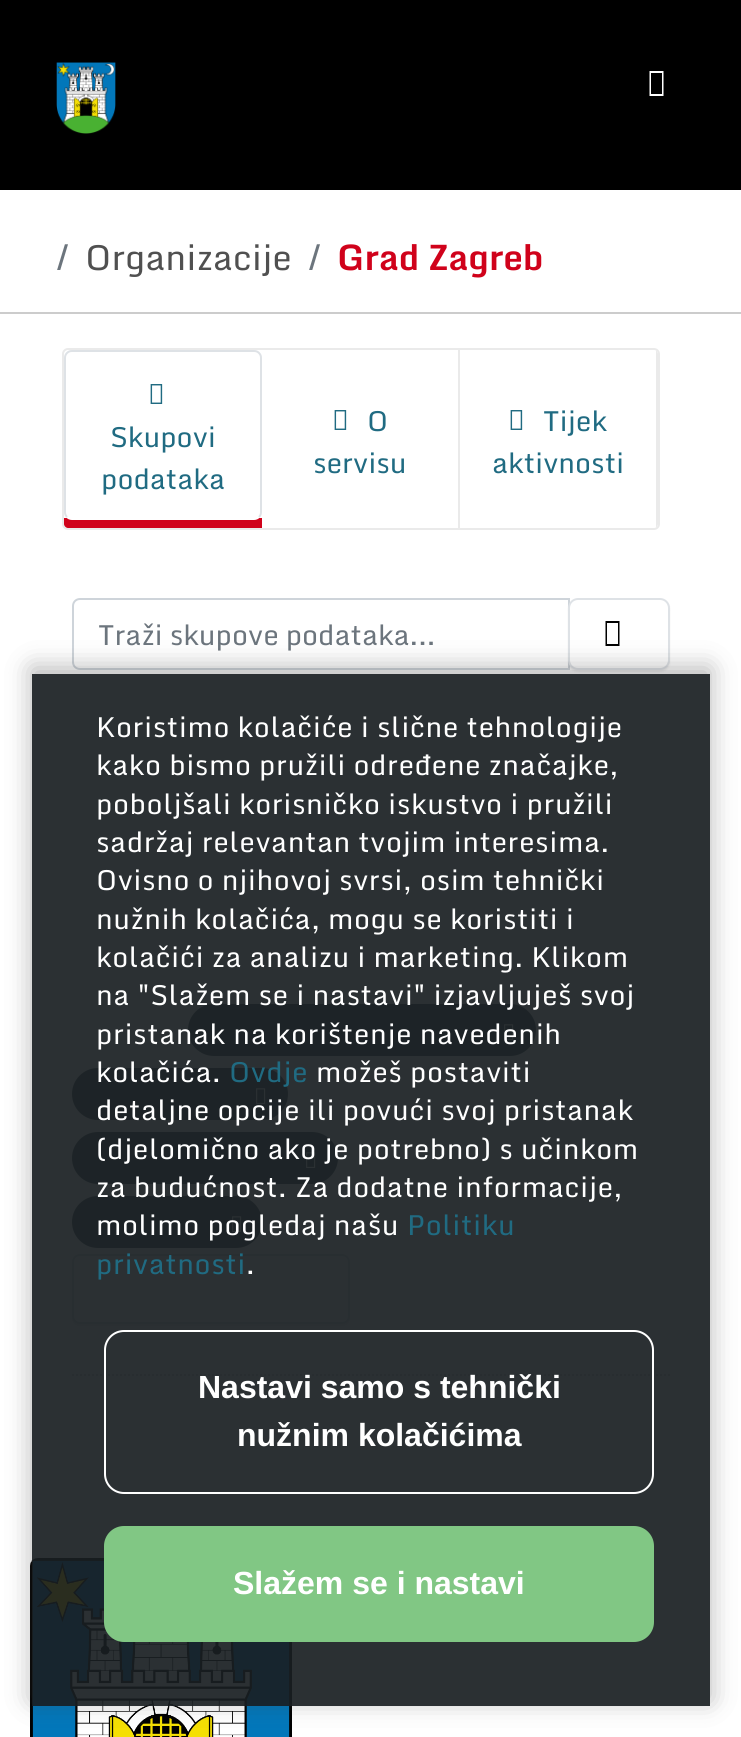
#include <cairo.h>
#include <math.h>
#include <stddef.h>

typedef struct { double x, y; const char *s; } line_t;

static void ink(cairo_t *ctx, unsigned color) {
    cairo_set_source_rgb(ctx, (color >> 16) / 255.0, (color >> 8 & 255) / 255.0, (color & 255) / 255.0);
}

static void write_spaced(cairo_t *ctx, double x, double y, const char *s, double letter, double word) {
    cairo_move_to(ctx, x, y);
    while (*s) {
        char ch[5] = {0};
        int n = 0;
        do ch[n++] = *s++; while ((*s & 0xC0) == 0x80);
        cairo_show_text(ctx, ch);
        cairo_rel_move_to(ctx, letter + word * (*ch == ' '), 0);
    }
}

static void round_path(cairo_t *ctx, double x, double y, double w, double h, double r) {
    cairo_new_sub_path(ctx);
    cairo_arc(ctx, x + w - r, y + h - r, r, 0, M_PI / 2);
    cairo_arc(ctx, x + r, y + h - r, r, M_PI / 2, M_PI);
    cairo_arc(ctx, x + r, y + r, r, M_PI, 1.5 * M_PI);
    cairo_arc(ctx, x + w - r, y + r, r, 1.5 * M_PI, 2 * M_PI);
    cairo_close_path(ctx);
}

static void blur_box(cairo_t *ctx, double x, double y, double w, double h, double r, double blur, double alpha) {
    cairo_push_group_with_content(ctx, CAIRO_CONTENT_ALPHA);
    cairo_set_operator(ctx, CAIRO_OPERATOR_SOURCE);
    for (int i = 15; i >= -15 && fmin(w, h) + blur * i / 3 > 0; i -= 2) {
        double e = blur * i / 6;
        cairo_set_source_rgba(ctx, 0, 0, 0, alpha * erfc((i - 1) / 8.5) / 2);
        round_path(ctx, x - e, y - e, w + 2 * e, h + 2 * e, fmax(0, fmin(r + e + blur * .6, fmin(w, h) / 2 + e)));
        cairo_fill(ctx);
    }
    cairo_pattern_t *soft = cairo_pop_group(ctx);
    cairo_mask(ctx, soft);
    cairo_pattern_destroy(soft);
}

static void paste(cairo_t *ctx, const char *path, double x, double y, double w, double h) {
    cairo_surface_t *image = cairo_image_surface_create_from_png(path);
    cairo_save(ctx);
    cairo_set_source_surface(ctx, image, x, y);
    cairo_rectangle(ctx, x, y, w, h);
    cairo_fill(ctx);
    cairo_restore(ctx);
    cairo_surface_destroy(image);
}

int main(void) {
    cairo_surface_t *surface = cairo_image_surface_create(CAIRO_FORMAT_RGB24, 741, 1737);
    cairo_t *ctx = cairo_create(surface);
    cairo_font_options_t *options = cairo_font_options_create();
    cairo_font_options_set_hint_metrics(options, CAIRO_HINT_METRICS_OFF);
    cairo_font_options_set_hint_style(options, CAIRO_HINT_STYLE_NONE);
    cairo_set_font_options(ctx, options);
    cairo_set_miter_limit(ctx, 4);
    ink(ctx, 0xFFFFFF);
    cairo_paint(ctx);
    ink(ctx, 0x000000);
    cairo_rectangle(ctx, 0, 0, 741, 190);
    cairo_fill(ctx);
    paste(ctx, "media/1.png", 56, 62, 60, 72);
    ink(ctx, 0xFFFFFF);
    cairo_new_path(ctx);
    cairo_move_to(ctx, 649.5, 96);
    cairo_line_to(ctx, 649.5, 71);
    cairo_line_to(ctx, 663.5, 71);
    cairo_line_to(ctx, 663.5, 96);
    cairo_close_path(ctx);
    cairo_move_to(ctx, 651, 94);
    cairo_line_to(ctx, 662, 94);
    cairo_line_to(ctx, 662, 73);
    cairo_line_to(ctx, 651, 73);
    cairo_close_path(ctx);
    cairo_fill(ctx);
    cairo_select_font_face(ctx, "Monda", CAIRO_FONT_SLANT_NORMAL, CAIRO_FONT_WEIGHT_NORMAL);
    cairo_set_font_size(ctx, 35);
    ink(ctx, 0x6C757D);
    cairo_move_to(ctx, 56, 270);
    cairo_show_text(ctx, "/");
    ink(ctx, 0x505050);
    cairo_move_to(ctx, 85, 270);
    cairo_show_text(ctx, "Organizacije");
    ink(ctx, 0x6C757D);
    cairo_move_to(ctx, 308, 270);
    cairo_show_text(ctx, "/");
    cairo_select_font_face(ctx, "Monda", CAIRO_FONT_SLANT_NORMAL, CAIRO_FONT_WEIGHT_BOLD);
    ink(ctx, 0xD0021B);
    cairo_move_to(ctx, 337, 270);
    cairo_show_text(ctx, "Grad Zagreb");
    ink(ctx, 0xCCCCCC);
    cairo_rectangle(ctx, 0, 312, 741, 2);
    cairo_fill(ctx);
    round_path(ctx, 63, 349, 596, 180, 5);
    ink(ctx, 0xEAEAEA);
    cairo_stroke(ctx);
    ink(ctx, 0xD0021B);
    cairo_new_path(ctx);
    cairo_move_to(ctx, 64, 518);
    cairo_line_to(ctx, 262, 518);
    cairo_line_to(ctx, 262, 528);
    cairo_line_to(ctx, 68, 528);
    cairo_curve_to(ctx, 66, 528, 64, 526, 64, 524);
    cairo_close_path(ctx);
    cairo_fill(ctx);
    ink(ctx, 0xFFFFFF);
    round_path(ctx, 64, 350, 198, 170, 8);
    cairo_fill(ctx);
    cairo_new_path(ctx);
    cairo_move_to(ctx, 67, 517);
    cairo_curve_to(ctx, 65.5, 515.5, 65, 514, 65, 512);
    cairo_line_to(ctx, 65, 358);
    cairo_curve_to(ctx, 65, 356, 65.5, 354.5, 67, 353);
    cairo_curve_to(ctx, 68.5, 351.5, 70, 351, 72, 351);
    cairo_line_to(ctx, 254, 351);
    cairo_curve_to(ctx, 256, 351, 257.5, 351.5, 259, 353);
    cairo_curve_to(ctx, 260.5, 354.5, 261, 356, 261, 358);
    cairo_line_to(ctx, 261, 512);
    cairo_curve_to(ctx, 261, 514, 260.5, 515.5, 259, 517);
    ink(ctx, 0xDEE2E6);
    cairo_stroke(ctx);
    paste(ctx, "media/2.png", 150, 384, 13, 20);
    cairo_select_font_face(ctx, "Monda", CAIRO_FONT_SLANT_NORMAL, CAIRO_FONT_WEIGHT_NORMAL);
    cairo_set_font_size(ctx, 28);
    ink(ctx, 0x206B82);
    cairo_move_to(ctx, 110, 447);
    cairo_show_text(ctx, "Skupovi");
    cairo_move_to(ctx, 101, 489);
    cairo_show_text(ctx, "podataka");
    ink(ctx, 0xEAEAEA);
    cairo_rectangle(ctx, 458, 350, 2, 178);
    cairo_fill(ctx);
    paste(ctx, "media/2.png", 334, 410, 13, 20);
    ink(ctx, 0x206B82);
    cairo_move_to(ctx, 367, 431);
    cairo_show_text(ctx, "O");
    cairo_move_to(ctx, 313, 473);
    cairo_show_text(ctx, "servisu");
    cairo_save(ctx);
    round_path(ctx, 64, 350, 594, 178, 4);
    cairo_clip(ctx);
    ink(ctx, 0xEAEAEA);
    cairo_rectangle(ctx, 656, 350, 2, 178);
    cairo_fill(ctx);
    cairo_restore(ctx);
    paste(ctx, "media/2.png", 510, 410, 13, 20);
    cairo_move_to(ctx, 543, 431);
    cairo_show_text(ctx, "Tijek");
    cairo_move_to(ctx, 492, 473);
    cairo_show_text(ctx, "aktivnosti");
    cairo_new_path(ctx);
    cairo_move_to(ctx, 72, 1375);
    cairo_line_to(ctx, 670, 1375);
    ink(ctx, 0xDDDDDD);
    cairo_set_dash(ctx, (double[]){2, 2}, 2, 0);
    cairo_stroke(ctx);
    cairo_new_path(ctx);
    cairo_move_to(ctx, 80, 599);
    cairo_line_to(ctx, 569, 599);
    cairo_line_to(ctx, 569, 669);
    cairo_line_to(ctx, 80, 669);
    cairo_curve_to(ctx, 76, 669, 73, 666, 73, 662);
    cairo_line_to(ctx, 73, 606);
    cairo_curve_to(ctx, 73, 602, 76, 599, 80, 599);
    cairo_close_path(ctx);
    ink(ctx, 0xCED4DA);
    cairo_set_dash(ctx, NULL, 0, 0);
    cairo_stroke(ctx);
    ink(ctx, 0x6C757D);
    cairo_move_to(ctx, 98, 645);
    cairo_show_text(ctx, "Traži skupove podataka...");
    ink(ctx, 0x000000);
    blur_box(ctx, 568, 600, 102, 72, 10, 1, 0.07);
    ink(ctx, 0xFFFFFF);
    round_path(ctx, 569, 599, 100, 70, 9);
    cairo_fill_preserve(ctx);
    ink(ctx, 0xDEE2E6);
    cairo_stroke(ctx);
    ink(ctx, 0x000000);
    cairo_new_path(ctx);
    cairo_move_to(ctx, 605.5, 646);
    cairo_line_to(ctx, 605.5, 621);
    cairo_line_to(ctx, 619.5, 621);
    cairo_line_to(ctx, 619.5, 646);
    cairo_close_path(ctx);
    cairo_move_to(ctx, 607, 644);
    cairo_line_to(ctx, 618, 644);
    cairo_line_to(ctx, 618, 623);
    cairo_line_to(ctx, 607, 623);
    cairo_close_path(ctx);
    cairo_fill(ctx);
    ink(ctx, 0x4E5F65);
    round_path(ctx, 188, 1004, 348, 52, 26);
    cairo_fill(ctx);
    paste(ctx, "media/3.png", 504, 1024, 10, 16);
    round_path(ctx, 72, 1068, 216, 52, 26);
    cairo_fill(ctx);
    paste(ctx, "media/3.png", 256, 1088, 10, 16);
    round_path(ctx, 72, 1132, 266, 52, 26);
    cairo_fill(ctx);
    paste(ctx, "media/3.png", 306, 1152, 10, 16);
    round_path(ctx, 72, 1196, 190, 52, 26);
    cairo_fill(ctx);
    paste(ctx, "media/3.png", 232, 1216, 10, 16);
    ink(ctx, 0x000000);
    blur_box(ctx, 72, 1256, 278, 70, 8, 1, 0.07);
    ink(ctx, 0xFFFFFF);
    round_path(ctx, 73, 1255, 276, 68, 7);
    cairo_fill_preserve(ctx);
    ink(ctx, 0xDEE2E6);
    cairo_stroke(ctx);
    paste(ctx, "media/4.png", 30, 1558, 262, 179);
    cairo_save(ctx);
    cairo_set_fill_rule(ctx, CAIRO_FILL_RULE_EVEN_ODD);
    cairo_new_path(ctx);
    cairo_move_to(ctx, 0, 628);
    cairo_line_to(ctx, 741, 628);
    cairo_line_to(ctx, 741, 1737);
    cairo_line_to(ctx, 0, 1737);
    cairo_close_path(ctx);
    cairo_move_to(ctx, 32, 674);
    cairo_line_to(ctx, 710, 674);
    cairo_line_to(ctx, 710, 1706);
    cairo_line_to(ctx, 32, 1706);
    cairo_close_path(ctx);
    cairo_clip(ctx);
    ink(ctx, 0x393939);
    blur_box(ctx, 32, 668, 678, 1032, 0, 13, 0.38);
    cairo_restore(ctx);
    cairo_set_source_rgba(ctx, 0.098, 0.122, 0.133, 0.92);
    cairo_rectangle(ctx, 32, 674, 678, 1032);
    cairo_fill(ctx);
    ink(ctx, 0xFFFFFF);
    {
        static const line_t items[] = {
            {96, 737, "Koristimo kolačiće i slične tehnologije"},
            {96, 775, "kako bismo pružili određene značajke,"},
            {96, 814, "poboljšali korisničko iskustvo i pružili"},
            {96, 852, "sadržaj relevantan tvojim interesima."},
            {96, 890, "Ovisno o njihovoj svrsi, osim tehnički"},
            {96, 929, "nužnih kolačića, mogu se koristiti i"},
            {96, 967, "kolačići za analizu i marketing. Klikom"},
            {96, 1005, "na \"Slažem se i nastavi\" izjavljuješ svoj"},
            {96, 1044, "pristanak na korištenje navedenih"},
            {96, 1082, "kolačića."},
        };
        for (size_t i = 0; i < sizeof items / sizeof *items; i++) {
            write_spaced(ctx, items[i].x, items[i].y, items[i].s, 0.55, 0);
        }
    }
    ink(ctx, 0x206B82);
    write_spaced(ctx, 229, 1082, "Ovdje", 0.55, 0);
    ink(ctx, 0xFFFFFF);
    {
        static const line_t items[] = {
            {316, 1082, "možeš postaviti"},
            {96, 1120, "detaljne opcije ili povući svoj pristanak"},
            {96, 1159, "(djelomično ako je potrebno) s učinkom"},
            {96, 1197, "za budućnost. Za dodatne informacije,"},
            {96, 1235, "molimo pogledaj našu"},
        };
        for (size_t i = 0; i < sizeof items / sizeof *items; i++) {
            write_spaced(ctx, items[i].x, items[i].y, items[i].s, 0.55, 0);
        }
    }
    ink(ctx, 0x206B82);
    write_spaced(ctx, 407, 1235, "Politiku", 0.55, 0);
    write_spaced(ctx, 96, 1274, "privatnosti", 0.55, 0);
    ink(ctx, 0xFFFFFF);
    write_spaced(ctx, 246, 1274, ".", 0.55, 0);
    round_path(ctx, 105, 1331, 548, 162, 19);
    cairo_stroke(ctx);
    cairo_select_font_face(ctx, "Liberation Sans", CAIRO_FONT_SLANT_NORMAL, CAIRO_FONT_WEIGHT_BOLD);
    cairo_set_font_size(ctx, 32);
    cairo_move_to(ctx, 198, 1398);
    cairo_show_text(ctx, "Nastavi samo s tehnički");
    cairo_move_to(ctx, 237, 1446);
    cairo_show_text(ctx, "nužnim kolačićima");
    ink(ctx, 0x81C784);
    round_path(ctx, 105, 1527, 548, 114, 19);
    cairo_fill_preserve(ctx);
    cairo_stroke(ctx);
    ink(ctx, 0xFFFFFF);
    cairo_move_to(ctx, 233, 1594);
    cairo_show_text(ctx, "Slažem se i nastavi");
    cairo_surface_write_to_png(surface, "image.png");
    cairo_font_options_destroy(options);
    cairo_destroy(ctx);
    cairo_surface_destroy(surface);
    return 0;
}
